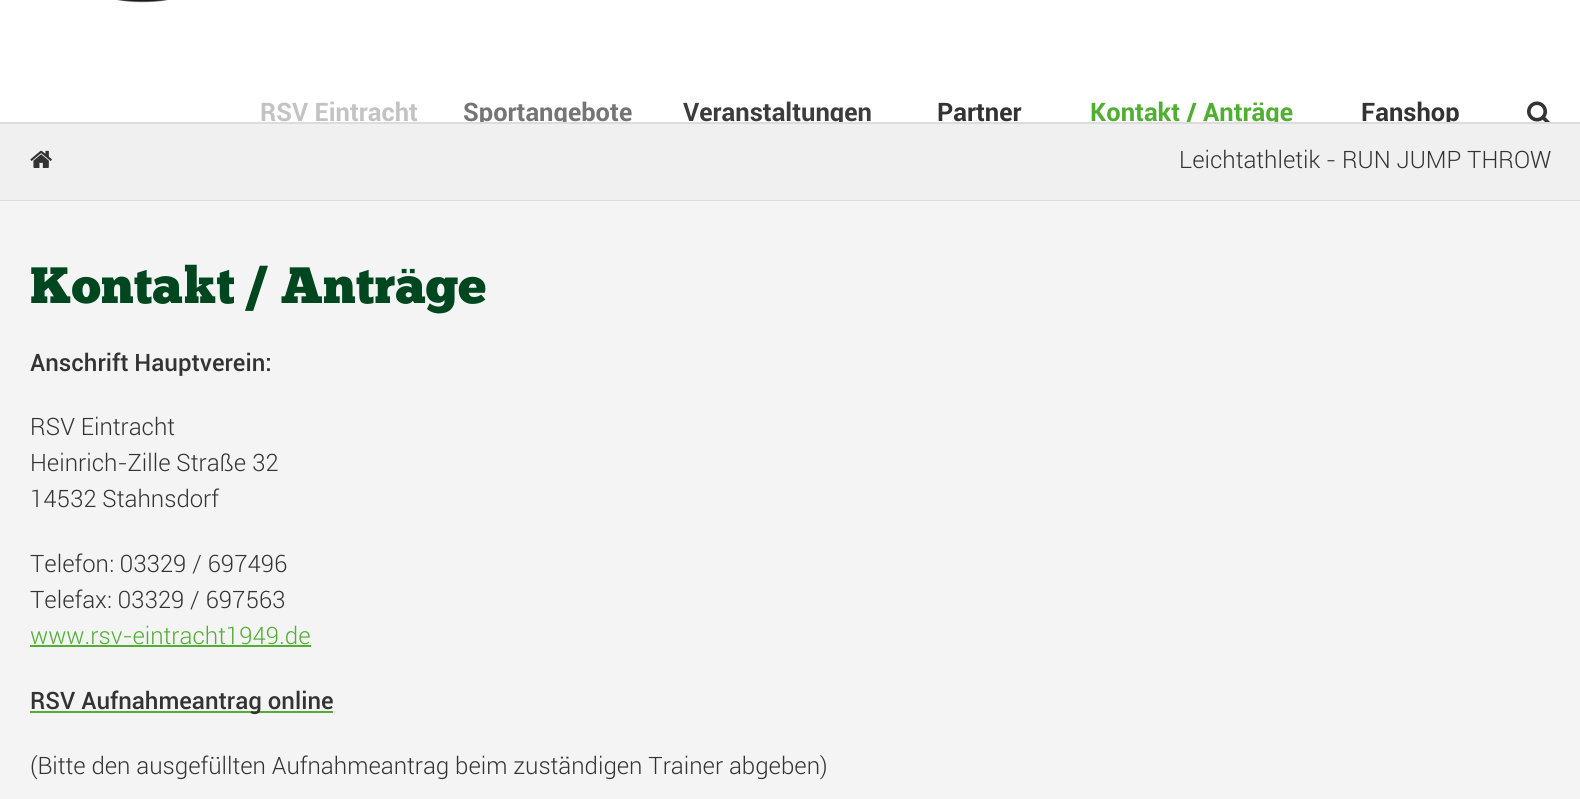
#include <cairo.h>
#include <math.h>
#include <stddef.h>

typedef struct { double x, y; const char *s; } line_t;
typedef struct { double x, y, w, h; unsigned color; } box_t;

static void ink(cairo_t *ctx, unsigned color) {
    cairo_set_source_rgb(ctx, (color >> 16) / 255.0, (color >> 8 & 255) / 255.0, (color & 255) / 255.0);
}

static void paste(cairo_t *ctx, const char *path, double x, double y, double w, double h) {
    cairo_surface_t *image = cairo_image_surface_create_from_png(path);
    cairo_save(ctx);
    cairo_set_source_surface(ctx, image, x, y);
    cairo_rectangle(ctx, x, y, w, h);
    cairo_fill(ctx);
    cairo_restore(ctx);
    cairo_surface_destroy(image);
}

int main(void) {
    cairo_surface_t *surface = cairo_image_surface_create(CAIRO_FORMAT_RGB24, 1580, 799);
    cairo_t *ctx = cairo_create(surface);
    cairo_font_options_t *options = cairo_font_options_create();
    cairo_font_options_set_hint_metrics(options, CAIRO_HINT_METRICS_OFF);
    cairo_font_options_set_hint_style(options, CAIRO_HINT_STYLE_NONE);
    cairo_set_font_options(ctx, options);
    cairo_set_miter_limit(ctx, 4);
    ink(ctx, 0xFFFFFF);
    cairo_paint(ctx);
    paste(ctx, "media/1.png", 117, 0, 51, 3);
    cairo_select_font_face(ctx, "Roboto", CAIRO_FONT_SLANT_NORMAL, CAIRO_FONT_WEIGHT_BOLD);
    cairo_set_font_size(ctx, 25.5);
    ink(ctx, 0xC3C3C3);
    cairo_move_to(ctx, 260, 121);
    cairo_show_text(ctx, "RSV Eintracht");
    ink(ctx, 0x757575);
    cairo_move_to(ctx, 463, 121);
    cairo_show_text(ctx, "Sportangebote");
    ink(ctx, 0x3C3C3C);
    cairo_move_to(ctx, 683, 121);
    cairo_show_text(ctx, "Veranstaltungen");
    ink(ctx, 0x333333);
    cairo_move_to(ctx, 937, 121);
    cairo_show_text(ctx, "Partner");
    ink(ctx, 0x50AF31);
    cairo_move_to(ctx, 1090, 121);
    cairo_show_text(ctx, "Kontakt / Anträge");
    ink(ctx, 0x333333);
    cairo_move_to(ctx, 1361, 121);
    cairo_show_text(ctx, "Fanshop");
    paste(ctx, "media/2.png", 1527, 101, 23, 21);
    {
        static const box_t items[] = {
            {0, 124, 1580, 76, 0xF0F0F0},
            {0, 122, 1580, 2, 0xDCDCDC},
            {0, 200, 1580, 1, 0xDCDCDC},
        };
        for (size_t i = 0; i < sizeof items / sizeof *items; i++) {
            ink(ctx, items[i].color);
            cairo_rectangle(ctx, items[i].x, items[i].y, items[i].w, items[i].h);
            cairo_fill(ctx);
        }
    }
    paste(ctx, "media/3.png", 30, 150, 22, 18);
    cairo_select_font_face(ctx, "Roboto Light", CAIRO_FONT_SLANT_NORMAL, CAIRO_FONT_WEIGHT_NORMAL);
    cairo_set_font_size(ctx, 24);
    ink(ctx, 0x333333);
    cairo_move_to(ctx, 1179, 168);
    cairo_show_text(ctx, "Leichtathletik - RUN JUMP THROW");
    ink(ctx, 0xF4F4F4);
    cairo_rectangle(ctx, 0, 201, 1580, 598);
    cairo_fill(ctx);
    cairo_select_font_face(ctx, "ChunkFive", CAIRO_FONT_SLANT_NORMAL, CAIRO_FONT_WEIGHT_NORMAL);
    cairo_set_font_size(ctx, 51);
    ink(ctx, 0x004720);
    cairo_move_to(ctx, 30, 303);
    cairo_show_text(ctx, "Kontakt / Anträge");
    cairo_select_font_face(ctx, "Roboto Medium", CAIRO_FONT_SLANT_NORMAL, CAIRO_FONT_WEIGHT_NORMAL);
    cairo_set_font_size(ctx, 24);
    ink(ctx, 0x333333);
    cairo_move_to(ctx, 30, 371);
    cairo_show_text(ctx, "Anschrift Hauptverein:");
    cairo_select_font_face(ctx, "Roboto Light", CAIRO_FONT_SLANT_NORMAL, CAIRO_FONT_WEIGHT_NORMAL);
    {
        static const line_t items[] = {
            {30, 435, "RSV Eintracht"},
            {30, 471, "Heinrich-Zille Straße 32"},
            {30, 507, "14532 Stahnsdorf"},
            {30, 572, "Telefon: 03329 / 697496"},
            {30, 608, "Telefax: 03329 / 697563"},
        };
        for (size_t i = 0; i < sizeof items / sizeof *items; i++) {
            cairo_move_to(ctx, items[i].x, items[i].y);
            cairo_show_text(ctx, items[i].s);
        }
    }
    ink(ctx, 0x50AF31);
    cairo_move_to(ctx, 30, 644);
    cairo_show_text(ctx, "www.rsv-eintracht1949.de");
    cairo_rectangle(ctx, 30, 645, 281, 2);
    cairo_fill(ctx);
    cairo_rectangle(ctx, 30, 711, 303, 2);
    cairo_fill(ctx);
    cairo_select_font_face(ctx, "Roboto Medium", CAIRO_FONT_SLANT_NORMAL, CAIRO_FONT_WEIGHT_NORMAL);
    ink(ctx, 0x333333);
    cairo_move_to(ctx, 30, 709);
    cairo_show_text(ctx, "RSV Aufnahmeantrag online");
    cairo_select_font_face(ctx, "Roboto Light", CAIRO_FONT_SLANT_NORMAL, CAIRO_FONT_WEIGHT_NORMAL);
    cairo_move_to(ctx, 30, 774);
    cairo_show_text(ctx, "(Bitte den ausgefüllten Aufnahmeantrag beim zuständigen Trainer abgeben)");
    cairo_surface_write_to_png(surface, "image.png");
    cairo_font_options_destroy(options);
    cairo_destroy(ctx);
    cairo_surface_destroy(surface);
    return 0;
}
